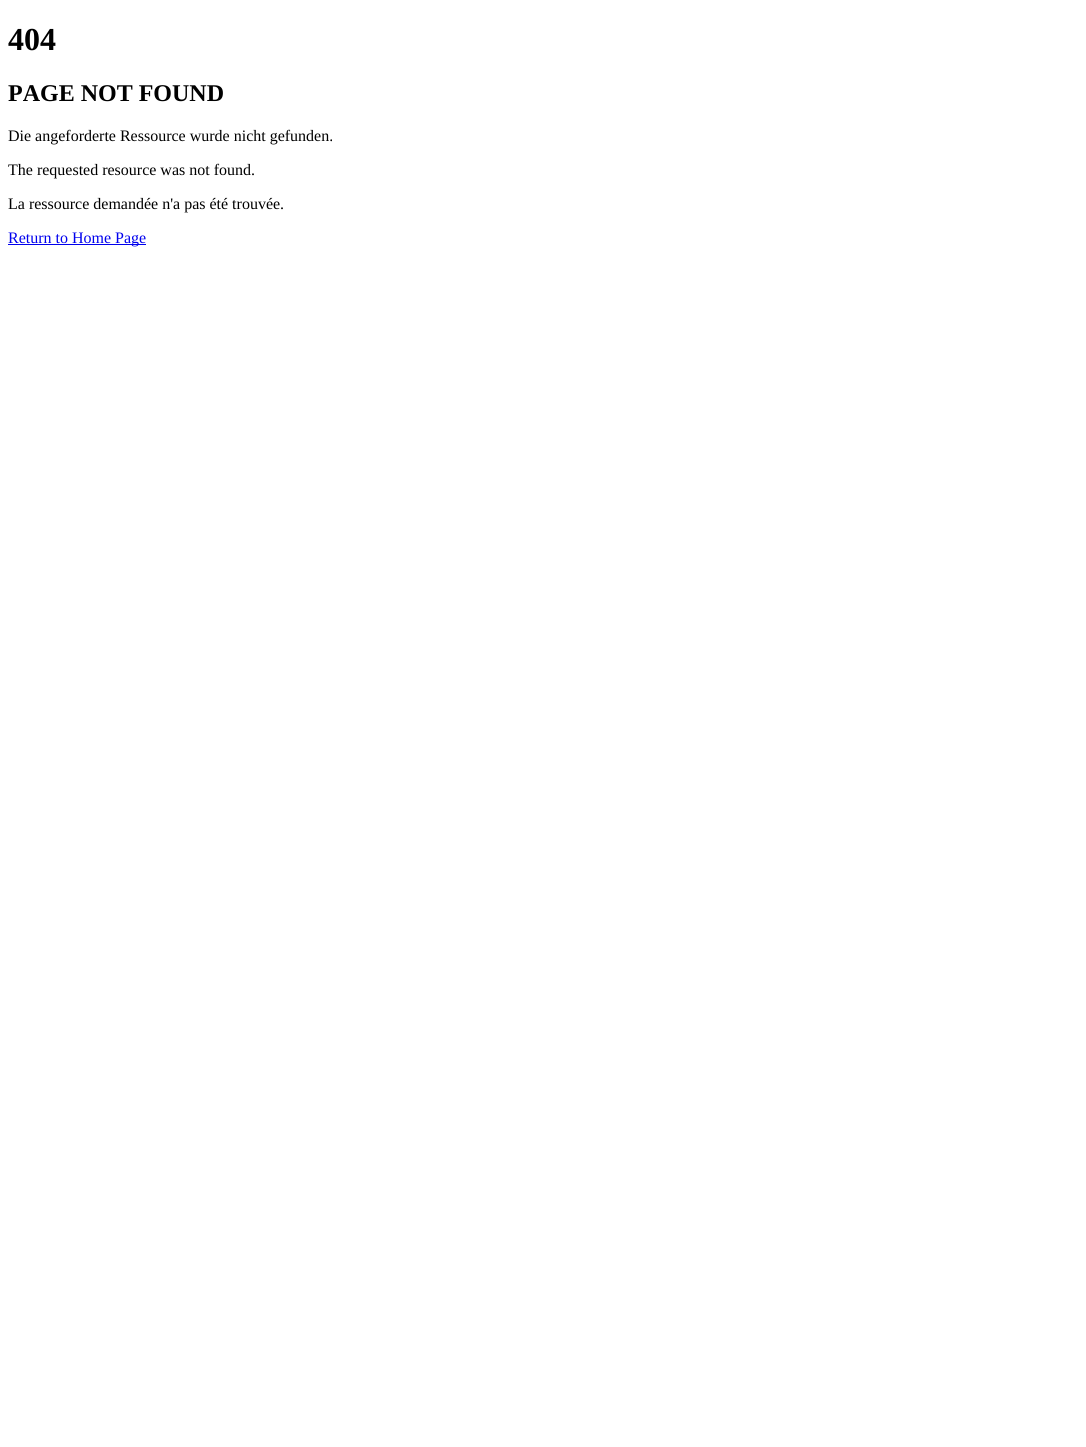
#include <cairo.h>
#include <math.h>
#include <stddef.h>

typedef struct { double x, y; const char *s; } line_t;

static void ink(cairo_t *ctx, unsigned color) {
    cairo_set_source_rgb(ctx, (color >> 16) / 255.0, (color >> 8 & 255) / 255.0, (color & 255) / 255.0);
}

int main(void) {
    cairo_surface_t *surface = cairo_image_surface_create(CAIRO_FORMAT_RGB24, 1086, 1447);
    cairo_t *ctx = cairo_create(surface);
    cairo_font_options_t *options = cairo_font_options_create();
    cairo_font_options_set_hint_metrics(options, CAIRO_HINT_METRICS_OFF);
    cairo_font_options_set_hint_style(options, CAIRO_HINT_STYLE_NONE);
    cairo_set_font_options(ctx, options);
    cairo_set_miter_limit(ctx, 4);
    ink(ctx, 0xFFFFFF);
    cairo_paint(ctx);
    cairo_select_font_face(ctx, "Liberation Serif", CAIRO_FONT_SLANT_NORMAL, CAIRO_FONT_WEIGHT_BOLD);
    cairo_set_font_size(ctx, 32);
    ink(ctx, 0x000000);
    cairo_move_to(ctx, 8, 50);
    cairo_show_text(ctx, "404");
    cairo_set_font_size(ctx, 24);
    cairo_move_to(ctx, 8, 101);
    cairo_show_text(ctx, "PAGE NOT FOUND");
    cairo_select_font_face(ctx, "Liberation Serif", CAIRO_FONT_SLANT_NORMAL, CAIRO_FONT_WEIGHT_NORMAL);
    cairo_set_font_size(ctx, 16);
    {
        static const line_t items[] = {
            {8, 141, "Die angeforderte Ressource wurde nicht gefunden."},
            {8, 175, "The requested resource was not found."},
            {8, 209, "La ressource demandée n'a pas été trouvée."},
        };
        for (size_t i = 0; i < sizeof items / sizeof *items; i++) {
            cairo_move_to(ctx, items[i].x, items[i].y);
            cairo_show_text(ctx, items[i].s);
        }
    }
    ink(ctx, 0x0000EE);
    cairo_rectangle(ctx, 8, 244, 138, 1);
    cairo_fill(ctx);
    cairo_move_to(ctx, 8, 243);
    cairo_show_text(ctx, "Return to Home Page");
    cairo_surface_write_to_png(surface, "image.png");
    cairo_font_options_destroy(options);
    cairo_destroy(ctx);
    cairo_surface_destroy(surface);
    return 0;
}
